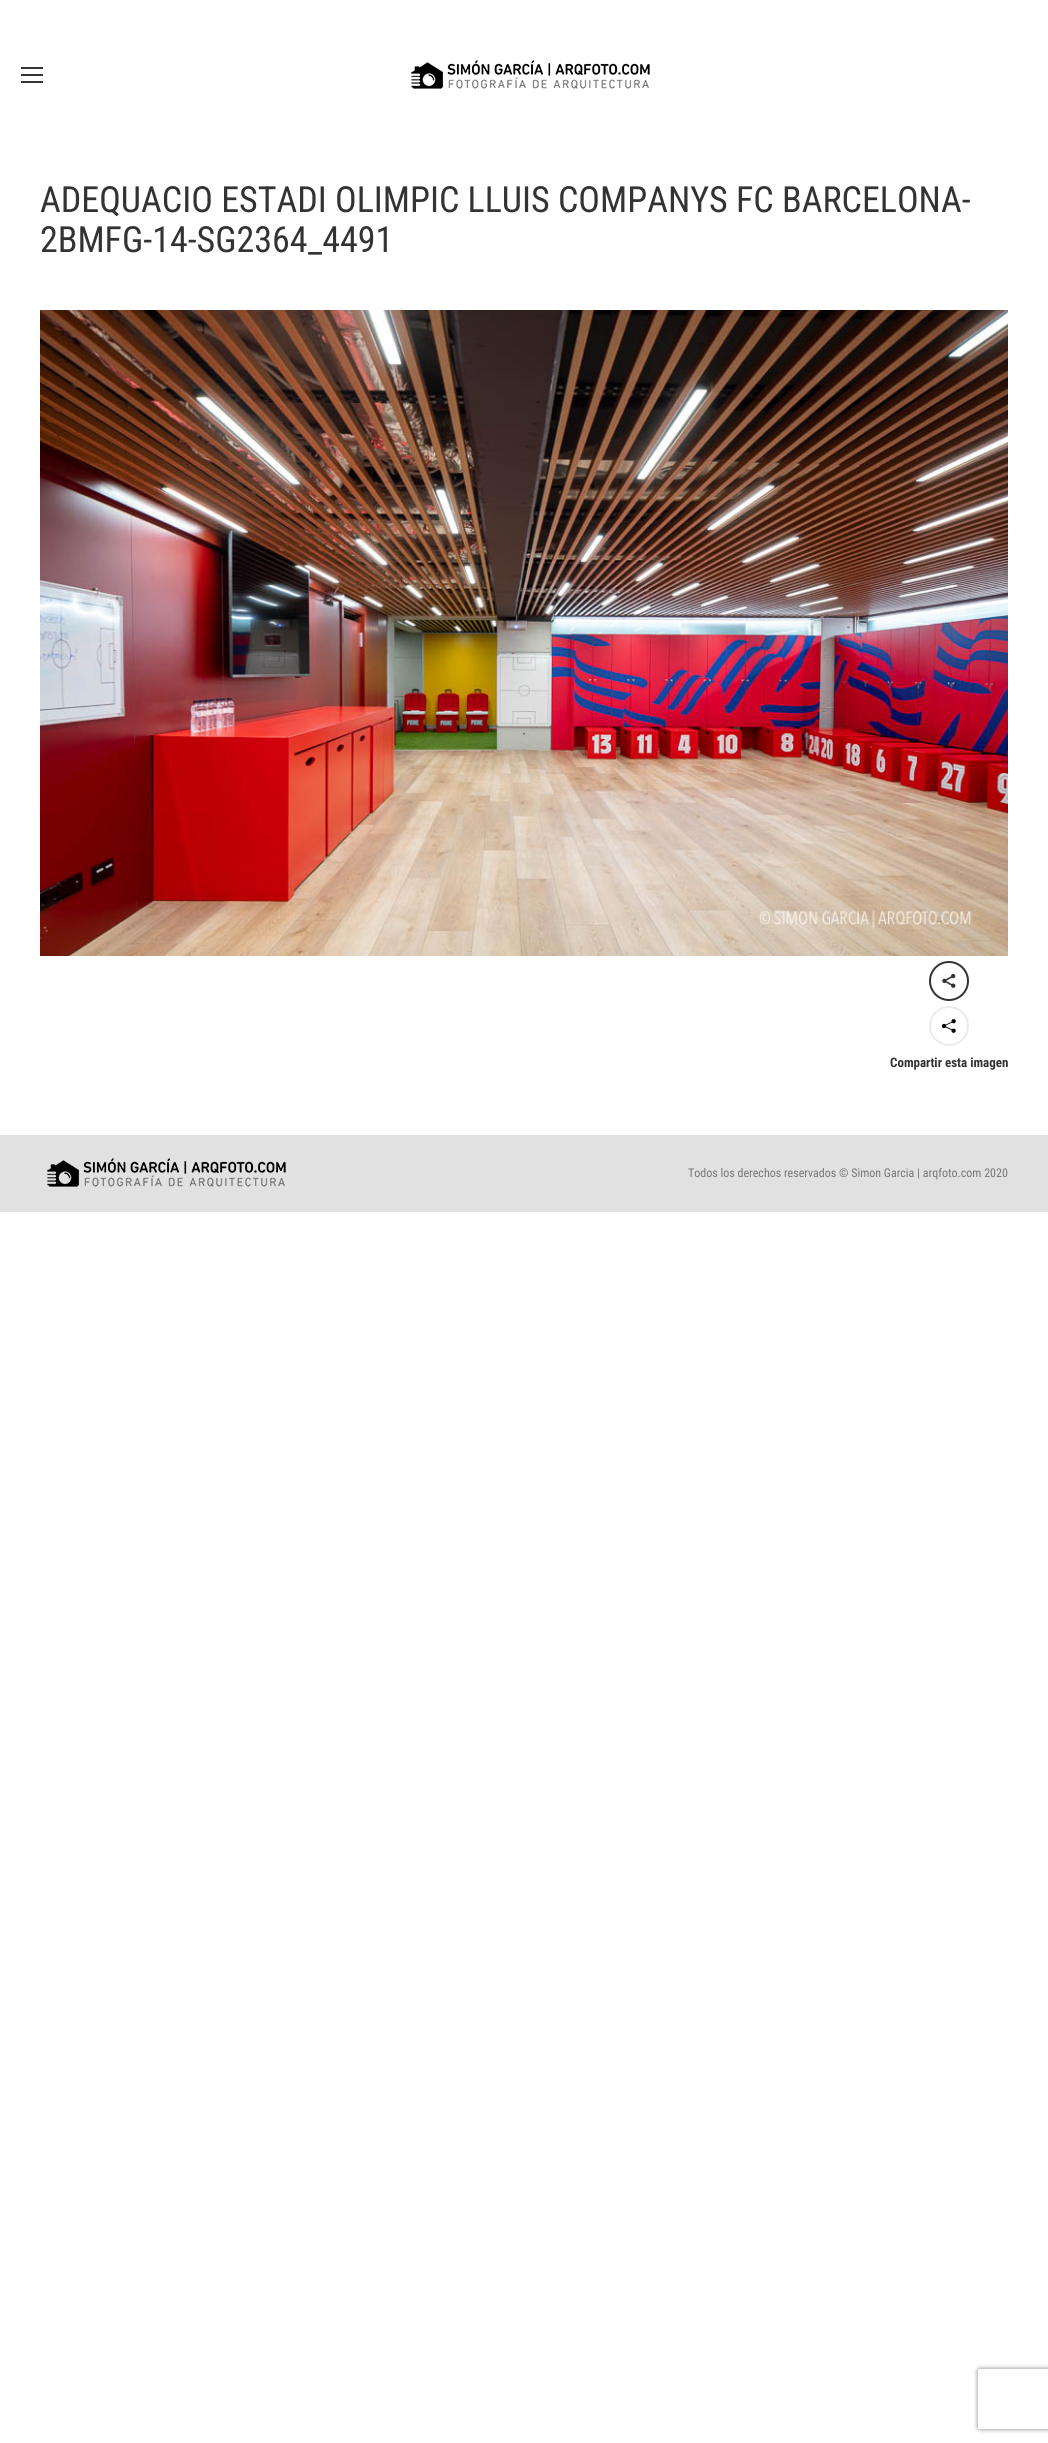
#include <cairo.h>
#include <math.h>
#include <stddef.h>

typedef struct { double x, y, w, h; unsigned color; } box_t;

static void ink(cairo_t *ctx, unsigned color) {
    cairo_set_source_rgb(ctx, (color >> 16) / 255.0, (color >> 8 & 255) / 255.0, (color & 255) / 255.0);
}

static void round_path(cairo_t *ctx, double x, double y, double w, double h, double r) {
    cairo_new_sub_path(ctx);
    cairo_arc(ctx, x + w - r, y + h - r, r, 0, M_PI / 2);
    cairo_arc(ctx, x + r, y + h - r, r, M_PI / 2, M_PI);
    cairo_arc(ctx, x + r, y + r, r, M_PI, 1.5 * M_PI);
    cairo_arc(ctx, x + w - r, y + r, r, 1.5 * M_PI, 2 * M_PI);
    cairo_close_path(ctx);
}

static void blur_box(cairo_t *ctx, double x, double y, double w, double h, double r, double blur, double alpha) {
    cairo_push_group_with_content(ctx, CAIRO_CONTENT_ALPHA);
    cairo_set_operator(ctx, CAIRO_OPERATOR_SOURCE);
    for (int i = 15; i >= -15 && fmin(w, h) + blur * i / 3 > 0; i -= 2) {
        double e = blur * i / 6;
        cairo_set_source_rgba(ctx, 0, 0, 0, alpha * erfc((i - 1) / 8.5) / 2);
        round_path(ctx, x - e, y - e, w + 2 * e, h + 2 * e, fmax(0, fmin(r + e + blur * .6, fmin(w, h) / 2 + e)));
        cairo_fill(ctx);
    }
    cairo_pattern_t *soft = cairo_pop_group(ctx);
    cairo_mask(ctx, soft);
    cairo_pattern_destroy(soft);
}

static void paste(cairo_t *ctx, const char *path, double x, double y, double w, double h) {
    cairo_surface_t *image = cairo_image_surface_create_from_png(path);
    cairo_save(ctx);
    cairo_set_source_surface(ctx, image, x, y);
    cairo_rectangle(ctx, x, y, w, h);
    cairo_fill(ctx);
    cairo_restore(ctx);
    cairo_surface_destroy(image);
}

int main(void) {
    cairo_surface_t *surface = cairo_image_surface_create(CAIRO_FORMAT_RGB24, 1048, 2443);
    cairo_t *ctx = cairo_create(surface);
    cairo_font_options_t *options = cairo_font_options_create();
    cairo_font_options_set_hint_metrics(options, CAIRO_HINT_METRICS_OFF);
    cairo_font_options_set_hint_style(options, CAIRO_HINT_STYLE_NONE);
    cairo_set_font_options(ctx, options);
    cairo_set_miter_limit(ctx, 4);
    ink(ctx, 0xFFFFFF);
    cairo_paint(ctx);
    {
        static const box_t items[] = {
            {21, 67, 22, 2, 0x333333},
            {21, 74, 22, 2, 0x333333},
            {21, 81, 22, 2, 0x333333},
        };
        for (size_t i = 0; i < sizeof items / sizeof *items; i++) {
            ink(ctx, items[i].color);
            cairo_rectangle(ctx, items[i].x, items[i].y, items[i].w, items[i].h);
            cairo_fill(ctx);
        }
    }
    paste(ctx, "media/1.png", 411, 60, 239, 29);
    cairo_select_font_face(ctx, "Roboto Condensed", CAIRO_FONT_SLANT_NORMAL, CAIRO_FONT_WEIGHT_NORMAL);
    cairo_set_font_size(ctx, 36);
    cairo_move_to(ctx, 40, 212);
    cairo_show_text(ctx, "ADEQUACIO ESTADI OLIMPIC LLUIS COMPANYS FC BARCELONA-");
    cairo_move_to(ctx, 40, 252);
    cairo_show_text(ctx, "2BMFG-14-SG2364_4491");
    paste(ctx, "media/2.png", 40, 310, 968, 646);
    cairo_arc(ctx, 949, 981, 19, 0, 2 * M_PI);
    cairo_stroke(ctx);
    paste(ctx, "media/3.png", 942, 973, 14, 15);
    cairo_arc(ctx, 949, 1026, 19, 0, 2 * M_PI);
    ink(ctx, 0xEBEBEB);
    cairo_stroke(ctx);
    paste(ctx, "media/4.png", 942, 1019, 14, 14);
    cairo_select_font_face(ctx, "Roboto Condensed", CAIRO_FONT_SLANT_NORMAL, CAIRO_FONT_WEIGHT_BOLD);
    cairo_set_font_size(ctx, 13);
    ink(ctx, 0x333333);
    cairo_move_to(ctx, 890, 1067);
    cairo_show_text(ctx, "Compartir esta imagen");
    ink(ctx, 0xE1E1E1);
    cairo_rectangle(ctx, 0, 1135, 1048, 77);
    cairo_fill(ctx);
    paste(ctx, "media/5.png", 47, 1158, 239, 29);
    cairo_select_font_face(ctx, "Roboto Condensed", CAIRO_FONT_SLANT_NORMAL, CAIRO_FONT_WEIGHT_NORMAL);
    cairo_set_font_size(ctx, 12);
    ink(ctx, 0x777777);
    cairo_move_to(ctx, 688, 1177);
    cairo_show_text(ctx, "Todos los derechos reservados © Simon Garcia | arqfoto.com 2020");
    cairo_save(ctx);
    cairo_set_fill_rule(ctx, CAIRO_FILL_RULE_EVEN_ODD);
    cairo_new_path(ctx);
    cairo_move_to(ctx, 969, 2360);
    cairo_line_to(ctx, 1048, 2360);
    cairo_line_to(ctx, 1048, 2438);
    cairo_line_to(ctx, 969, 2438);
    cairo_close_path(ctx);
    cairo_move_to(ctx, 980, 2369);
    cairo_line_to(ctx, 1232, 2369);
    cairo_curve_to(ctx, 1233, 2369, 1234, 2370, 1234, 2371);
    cairo_line_to(ctx, 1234, 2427);
    cairo_curve_to(ctx, 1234, 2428, 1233, 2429, 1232, 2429);
    cairo_line_to(ctx, 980, 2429);
    cairo_curve_to(ctx, 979, 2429, 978, 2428, 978, 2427);
    cairo_line_to(ctx, 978, 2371);
    cairo_curve_to(ctx, 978, 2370, 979, 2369, 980, 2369);
    cairo_close_path(ctx);
    cairo_clip(ctx);
    ink(ctx, 0x808080);
    blur_box(ctx, 978, 2369, 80, 60, 2, 2.5, 1);
    cairo_restore(ctx);
    cairo_surface_write_to_png(surface, "image.png");
    cairo_font_options_destroy(options);
    cairo_destroy(ctx);
    cairo_surface_destroy(surface);
    return 0;
}
